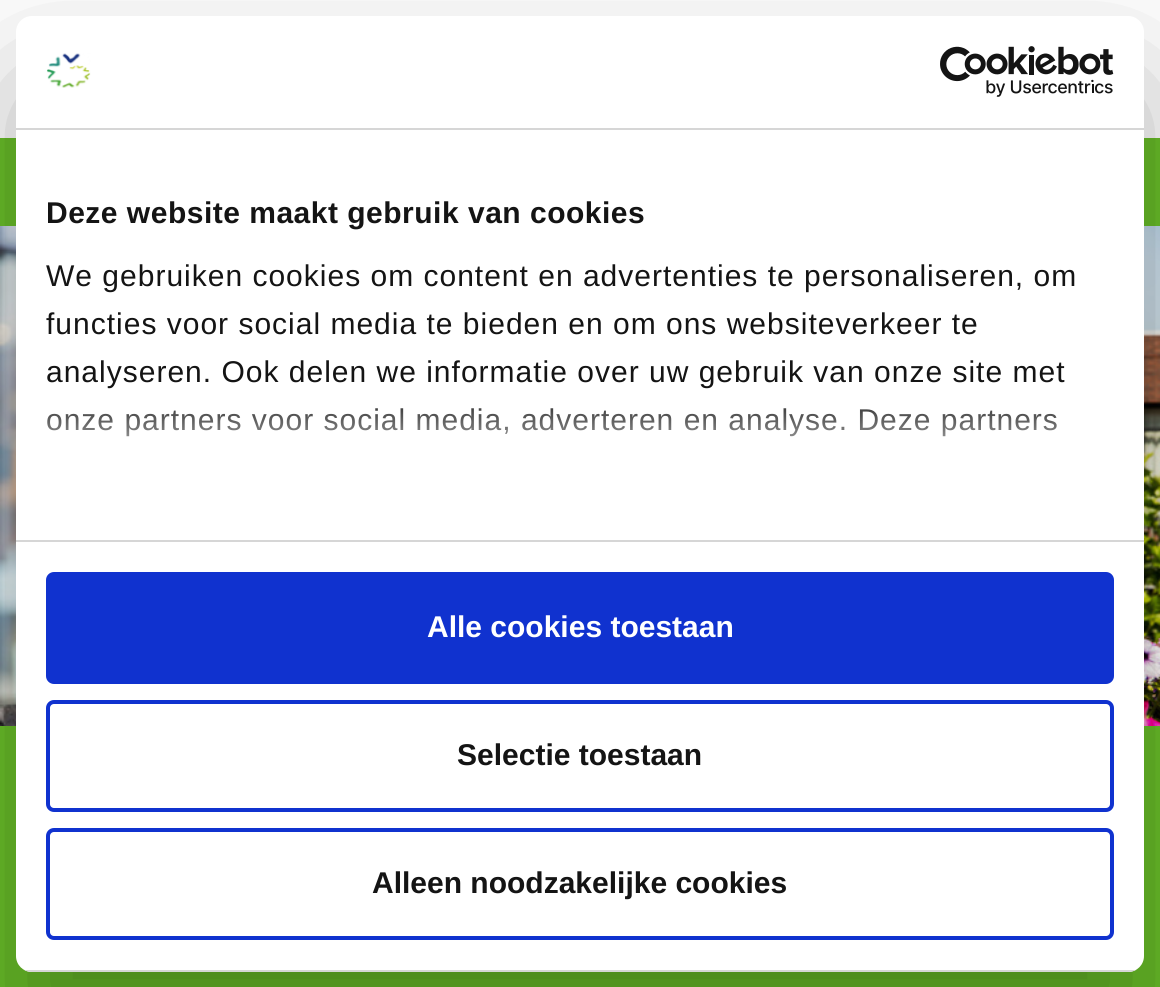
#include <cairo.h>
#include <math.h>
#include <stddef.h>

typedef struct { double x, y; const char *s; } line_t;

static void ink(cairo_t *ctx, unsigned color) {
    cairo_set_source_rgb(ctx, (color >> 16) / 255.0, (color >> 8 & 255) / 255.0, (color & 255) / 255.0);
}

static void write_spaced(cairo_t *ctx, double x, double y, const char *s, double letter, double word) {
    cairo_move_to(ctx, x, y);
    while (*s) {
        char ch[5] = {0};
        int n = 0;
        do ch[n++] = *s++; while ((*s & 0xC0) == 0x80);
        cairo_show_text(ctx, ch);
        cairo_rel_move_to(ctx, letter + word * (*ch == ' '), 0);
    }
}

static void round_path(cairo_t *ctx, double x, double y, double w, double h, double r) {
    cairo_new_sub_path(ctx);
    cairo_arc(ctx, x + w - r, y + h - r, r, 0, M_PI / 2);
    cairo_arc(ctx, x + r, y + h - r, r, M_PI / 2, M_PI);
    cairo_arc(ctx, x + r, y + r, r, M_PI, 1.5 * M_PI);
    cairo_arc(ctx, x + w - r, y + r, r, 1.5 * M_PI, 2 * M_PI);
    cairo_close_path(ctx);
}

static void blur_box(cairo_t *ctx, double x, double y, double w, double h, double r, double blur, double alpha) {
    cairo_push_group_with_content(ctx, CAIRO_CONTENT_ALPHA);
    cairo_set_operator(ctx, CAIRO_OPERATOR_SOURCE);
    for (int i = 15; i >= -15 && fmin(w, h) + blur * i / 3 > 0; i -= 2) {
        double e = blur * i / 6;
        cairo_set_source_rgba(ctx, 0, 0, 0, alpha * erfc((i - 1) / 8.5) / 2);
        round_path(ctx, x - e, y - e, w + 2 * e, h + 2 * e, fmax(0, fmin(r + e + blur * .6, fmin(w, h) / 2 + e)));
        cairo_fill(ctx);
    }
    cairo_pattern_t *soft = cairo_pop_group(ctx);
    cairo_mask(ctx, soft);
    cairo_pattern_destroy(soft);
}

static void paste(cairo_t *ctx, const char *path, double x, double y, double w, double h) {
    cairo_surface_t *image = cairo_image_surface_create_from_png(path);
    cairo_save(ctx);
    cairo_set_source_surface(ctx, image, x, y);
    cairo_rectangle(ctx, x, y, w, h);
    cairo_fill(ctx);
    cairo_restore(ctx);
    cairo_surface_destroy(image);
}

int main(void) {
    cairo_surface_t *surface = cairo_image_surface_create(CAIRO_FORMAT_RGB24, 1160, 987);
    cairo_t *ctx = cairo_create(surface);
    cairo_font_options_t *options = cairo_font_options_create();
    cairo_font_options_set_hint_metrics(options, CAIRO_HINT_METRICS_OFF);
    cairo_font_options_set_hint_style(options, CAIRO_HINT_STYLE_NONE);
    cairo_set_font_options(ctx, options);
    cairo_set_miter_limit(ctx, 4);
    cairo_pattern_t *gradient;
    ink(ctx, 0xFFFFFF);
    cairo_paint(ctx);
    ink(ctx, 0x69BE28);
    cairo_rectangle(ctx, 0, 138, 1160, 88);
    cairo_fill(ctx);
    cairo_rectangle(ctx, 0, 726, 1160, 261);
    cairo_fill(ctx);
    paste(ctx, "media/3.png", 0, 226, 16, 500);
    paste(ctx, "media/4.png", 1144, 226, 16, 500);
    ink(ctx, 0x000000);
    blur_box(ctx, 16, 80, 1128, 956, 16, 68, 0.3);
    ink(ctx, 0xFFFFFF);
    round_path(ctx, 16, 16, 1128, 956, 16);
    cairo_fill(ctx);
    ink(ctx, 0xD6D6D6);
    cairo_rectangle(ctx, 16, 128, 1128, 2);
    cairo_fill(ctx);
    paste(ctx, "media/1.png", 46, 53, 45, 35);
    paste(ctx, "media/2.png", 940, 46, 174, 51);
    cairo_rectangle(ctx, 16, 540, 1128, 2);
    cairo_fill(ctx);
    cairo_select_font_face(ctx, "Liberation Sans", CAIRO_FONT_SLANT_NORMAL, CAIRO_FONT_WEIGHT_BOLD);
    cairo_set_font_size(ctx, 30);
    ink(ctx, 0x141414);
    write_spaced(ctx, 46, 223, "Deze website maakt gebruik van cookies", 0.5, 0);
    cairo_select_font_face(ctx, "Liberation Sans", CAIRO_FONT_SLANT_NORMAL, CAIRO_FONT_WEIGHT_NORMAL);
    {
        static const line_t items[] = {
            {46, 286, "We gebruiken cookies om content en advertenties te personaliseren, om"},
            {46, 334, "functies voor social media te bieden en om ons websiteverkeer te"},
            {46, 382, "analyseren. Ook delen we informatie over uw gebruik van onze site met"},
            {46, 430, "onze partners voor social media, adverteren en analyse. Deze partners"},
        };
        for (size_t i = 0; i < sizeof items / sizeof *items; i++) {
            write_spaced(ctx, items[i].x, items[i].y, items[i].s, 1, 0);
        }
    }
    gradient = cairo_pattern_create_linear(567, 540, 567, 390);
    cairo_pattern_add_color_stop_rgba(gradient, 0, 1, 1, 1, 1);
    cairo_pattern_add_color_stop_rgba(gradient, 0.5, 1, 1, 1, 0.8);
    cairo_pattern_add_color_stop_rgba(gradient, 1, 1, 1, 1, 0);
    cairo_set_source(ctx, gradient);
    cairo_pattern_destroy(gradient);
    cairo_rectangle(ctx, 47, 408, 1010, 29);
    cairo_fill(ctx);
    cairo_save(ctx);
    round_path(ctx, 16, 16, 1128, 956, 16);
    cairo_clip(ctx);
    ink(ctx, 0xD6D6D6);
    cairo_rectangle(ctx, 16, 970, 1128, 2);
    cairo_fill(ctx);
    cairo_restore(ctx);
    ink(ctx, 0x1032CF);
    round_path(ctx, 48, 574, 1064, 108, 6);
    cairo_fill_preserve(ctx);
    cairo_set_line_width(ctx, 4);
    cairo_stroke(ctx);
    cairo_select_font_face(ctx, "Liberation Sans", CAIRO_FONT_SLANT_NORMAL, CAIRO_FONT_WEIGHT_BOLD);
    ink(ctx, 0xFFFFFF);
    cairo_move_to(ctx, 427, 637);
    cairo_show_text(ctx, "Alle cookies toestaan");
    round_path(ctx, 48, 702, 1064, 108, 6);
    ink(ctx, 0x1032CF);
    cairo_stroke(ctx);
    ink(ctx, 0x141414);
    cairo_move_to(ctx, 457, 765);
    cairo_show_text(ctx, "Selectie toestaan");
    round_path(ctx, 48, 830, 1064, 108, 6);
    ink(ctx, 0x1032CF);
    cairo_stroke(ctx);
    ink(ctx, 0x141414);
    cairo_move_to(ctx, 372, 893);
    cairo_show_text(ctx, "Alleen noodzakelijke cookies");
    cairo_surface_write_to_png(surface, "image.png");
    cairo_font_options_destroy(options);
    cairo_destroy(ctx);
    cairo_surface_destroy(surface);
    return 0;
}
